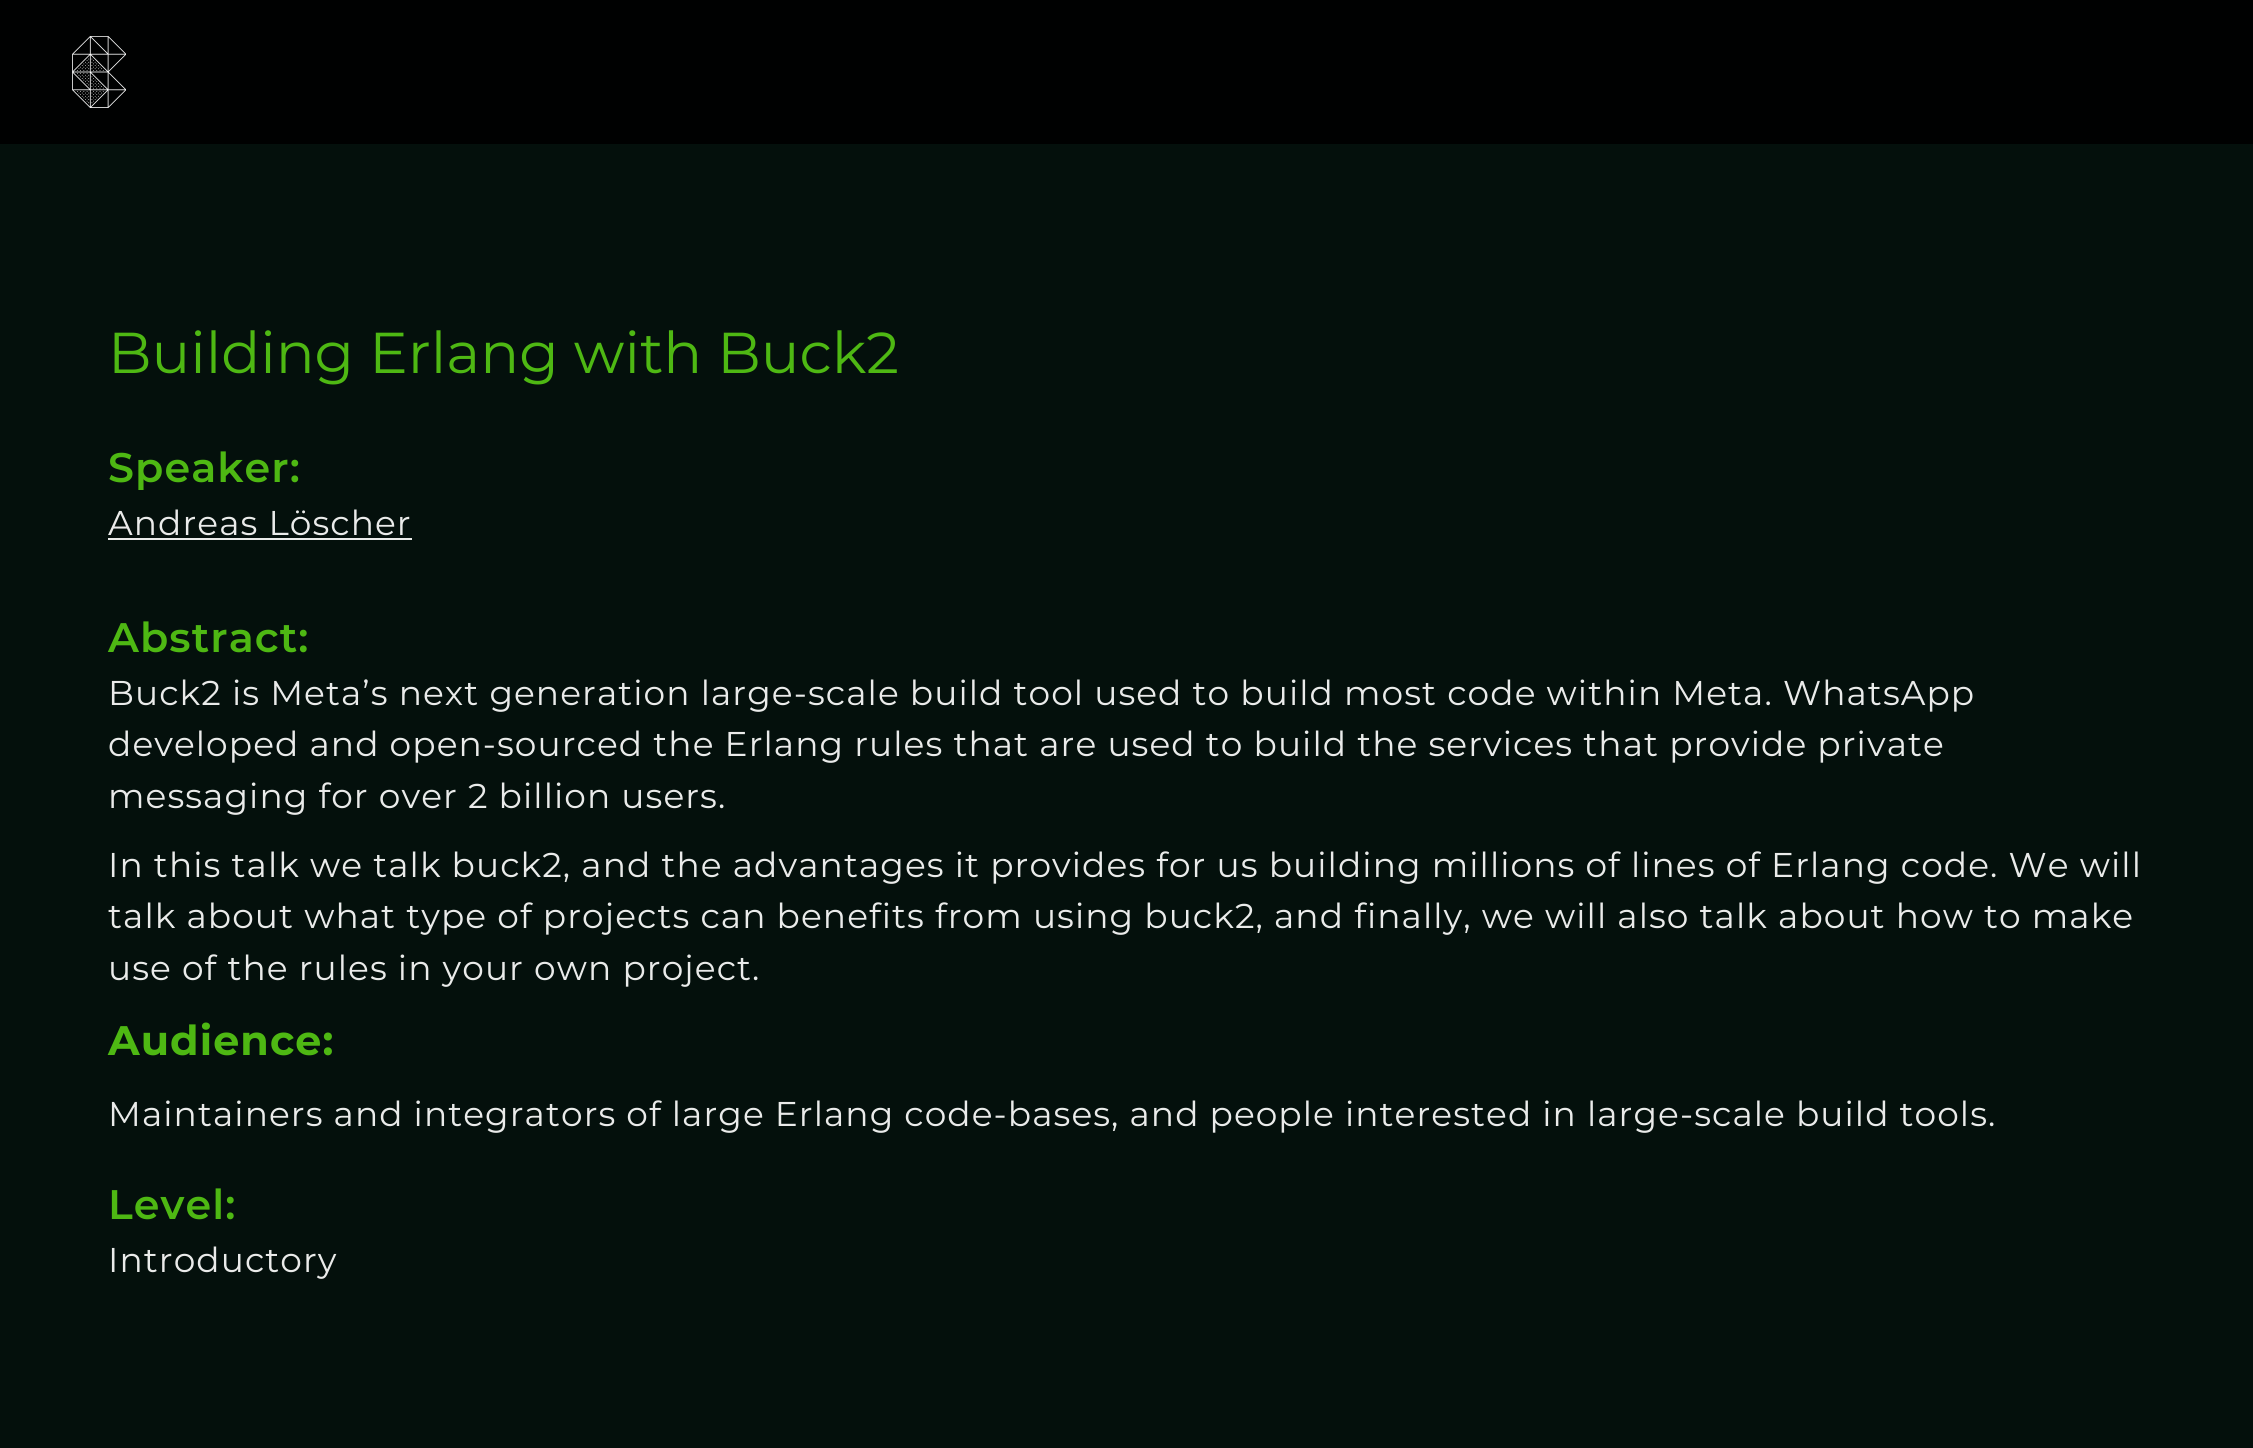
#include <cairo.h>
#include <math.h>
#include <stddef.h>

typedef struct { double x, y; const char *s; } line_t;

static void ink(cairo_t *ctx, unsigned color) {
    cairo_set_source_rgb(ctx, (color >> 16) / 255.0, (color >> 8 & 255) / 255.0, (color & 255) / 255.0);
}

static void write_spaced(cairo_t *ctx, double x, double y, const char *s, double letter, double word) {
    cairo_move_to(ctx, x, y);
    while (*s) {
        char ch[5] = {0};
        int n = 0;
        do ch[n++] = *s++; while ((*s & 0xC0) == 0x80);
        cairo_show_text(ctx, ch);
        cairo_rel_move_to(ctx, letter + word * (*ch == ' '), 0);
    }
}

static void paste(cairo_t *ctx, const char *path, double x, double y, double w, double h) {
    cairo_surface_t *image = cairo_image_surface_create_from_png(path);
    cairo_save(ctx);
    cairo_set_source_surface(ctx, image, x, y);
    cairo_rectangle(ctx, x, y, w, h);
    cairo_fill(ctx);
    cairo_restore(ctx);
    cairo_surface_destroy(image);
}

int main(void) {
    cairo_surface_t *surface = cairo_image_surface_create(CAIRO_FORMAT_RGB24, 2253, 1448);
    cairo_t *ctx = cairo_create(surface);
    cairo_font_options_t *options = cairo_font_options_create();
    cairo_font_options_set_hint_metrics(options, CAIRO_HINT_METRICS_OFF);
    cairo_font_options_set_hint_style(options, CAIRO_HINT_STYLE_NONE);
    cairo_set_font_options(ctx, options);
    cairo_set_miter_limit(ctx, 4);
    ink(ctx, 0x04100C);
    cairo_paint(ctx);
    ink(ctx, 0x000101);
    cairo_rectangle(ctx, 0, 0, 2253, 144);
    cairo_fill(ctx);
    paste(ctx, "media/1.png", 72, 36, 54, 72);
    cairo_select_font_face(ctx, "Montserrat", CAIRO_FONT_SLANT_NORMAL, CAIRO_FONT_WEIGHT_NORMAL);
    cairo_set_font_size(ctx, 57.6);
    ink(ctx, 0x4EB813);
    cairo_move_to(ctx, 108, 373);
    cairo_show_text(ctx, "Building Erlang with Buck2");
    cairo_select_font_face(ctx, "Montserrat SemiBold", CAIRO_FONT_SLANT_NORMAL, CAIRO_FONT_WEIGHT_NORMAL);
    cairo_set_font_size(ctx, 41.25);
    write_spaced(ctx, 108, 482, "Speaker:", 1.08, 0);
    cairo_select_font_face(ctx, "Montserrat", CAIRO_FONT_SLANT_NORMAL, CAIRO_FONT_WEIGHT_NORMAL);
    cairo_set_font_size(ctx, 34.38);
    ink(ctx, 0xEAEBEA);
    write_spaced(ctx, 108, 535, "Andreas Löscher", 1.08, 0);
    cairo_rectangle(ctx, 108, 538, 304, 2);
    cairo_fill(ctx);
    cairo_select_font_face(ctx, "Montserrat SemiBold", CAIRO_FONT_SLANT_NORMAL, CAIRO_FONT_WEIGHT_NORMAL);
    cairo_set_font_size(ctx, 41.25);
    ink(ctx, 0x4EB813);
    write_spaced(ctx, 108, 652, "Abstract:", 1.08, 0);
    cairo_select_font_face(ctx, "Montserrat", CAIRO_FONT_SLANT_NORMAL, CAIRO_FONT_WEIGHT_NORMAL);
    cairo_set_font_size(ctx, 34.38);
    ink(ctx, 0xEAEBEA);
    {
        static const line_t items[] = {
            {108, 705, "Buck2 is Meta’s next generation large-scale build tool used to build most code within Meta. WhatsApp"},
            {108, 756, "developed and open-sourced the Erlang rules that are used to build the services that provide private"},
            {108, 808, "messaging for over 2 billion users."},
            {108, 877, "In this talk we talk buck2, and the advantages it provides for us building millions of lines of Erlang code. We will"},
            {108, 928, "talk about what type of projects can benefits from using buck2, and finally, we will also talk about how to make"},
            {108, 980, "use of the rules in your own project."},
        };
        for (size_t i = 0; i < sizeof items / sizeof *items; i++) {
            write_spaced(ctx, items[i].x, items[i].y, items[i].s, 1.08, 0);
        }
    }
    cairo_select_font_face(ctx, "Montserrat", CAIRO_FONT_SLANT_NORMAL, CAIRO_FONT_WEIGHT_BOLD);
    cairo_set_font_size(ctx, 41.25);
    ink(ctx, 0x4EB813);
    write_spaced(ctx, 108, 1055, "Audience:", 1.08, 0);
    cairo_select_font_face(ctx, "Montserrat", CAIRO_FONT_SLANT_NORMAL, CAIRO_FONT_WEIGHT_NORMAL);
    cairo_set_font_size(ctx, 34.38);
    ink(ctx, 0xEAEBEA);
    write_spaced(ctx, 108, 1126, "Maintainers and integrators of large Erlang code-bases, and people interested in large-scale build tools.", 1.08, -0.1);
    cairo_select_font_face(ctx, "Montserrat SemiBold", CAIRO_FONT_SLANT_NORMAL, CAIRO_FONT_WEIGHT_NORMAL);
    cairo_set_font_size(ctx, 41.25);
    ink(ctx, 0x4EB813);
    write_spaced(ctx, 108, 1219, "Level:", 1.08, 0);
    cairo_select_font_face(ctx, "Montserrat", CAIRO_FONT_SLANT_NORMAL, CAIRO_FONT_WEIGHT_NORMAL);
    cairo_set_font_size(ctx, 34.38);
    ink(ctx, 0xEAEBEA);
    write_spaced(ctx, 108, 1272, "Introductory", 1.08, 0);
    cairo_surface_write_to_png(surface, "image.png");
    cairo_font_options_destroy(options);
    cairo_destroy(ctx);
    cairo_surface_destroy(surface);
    return 0;
}
